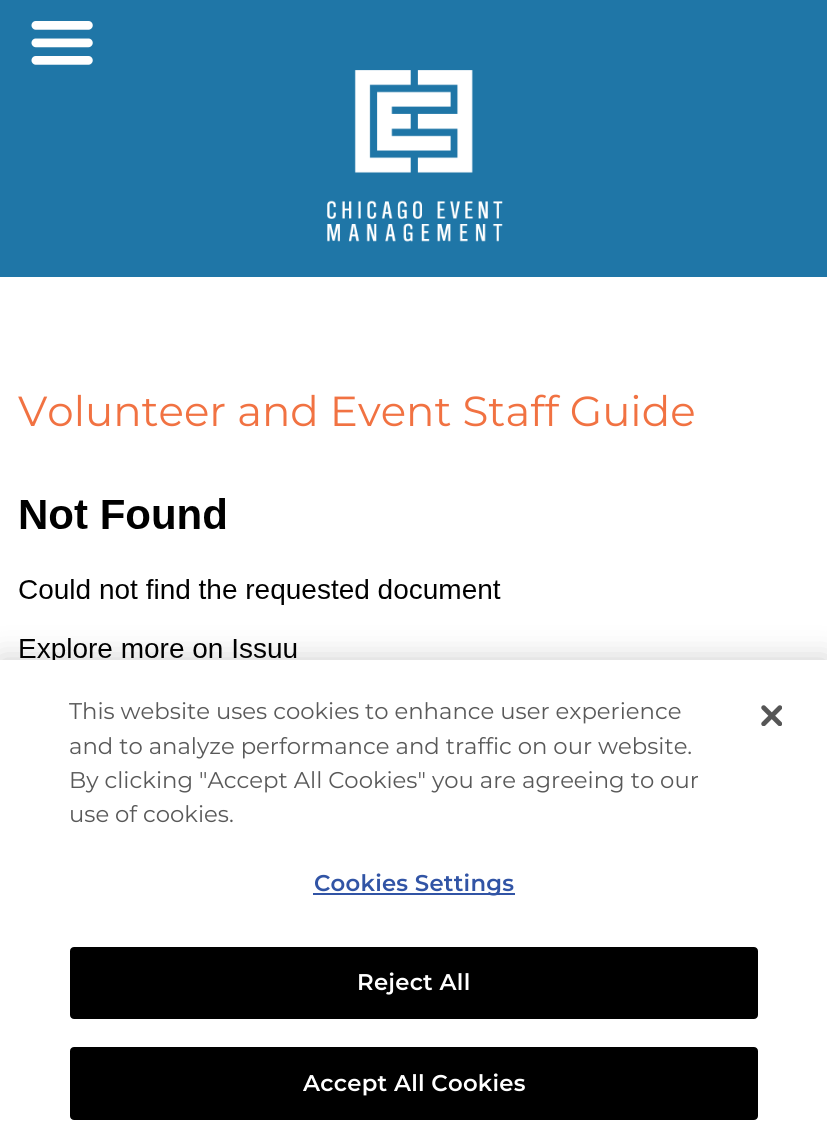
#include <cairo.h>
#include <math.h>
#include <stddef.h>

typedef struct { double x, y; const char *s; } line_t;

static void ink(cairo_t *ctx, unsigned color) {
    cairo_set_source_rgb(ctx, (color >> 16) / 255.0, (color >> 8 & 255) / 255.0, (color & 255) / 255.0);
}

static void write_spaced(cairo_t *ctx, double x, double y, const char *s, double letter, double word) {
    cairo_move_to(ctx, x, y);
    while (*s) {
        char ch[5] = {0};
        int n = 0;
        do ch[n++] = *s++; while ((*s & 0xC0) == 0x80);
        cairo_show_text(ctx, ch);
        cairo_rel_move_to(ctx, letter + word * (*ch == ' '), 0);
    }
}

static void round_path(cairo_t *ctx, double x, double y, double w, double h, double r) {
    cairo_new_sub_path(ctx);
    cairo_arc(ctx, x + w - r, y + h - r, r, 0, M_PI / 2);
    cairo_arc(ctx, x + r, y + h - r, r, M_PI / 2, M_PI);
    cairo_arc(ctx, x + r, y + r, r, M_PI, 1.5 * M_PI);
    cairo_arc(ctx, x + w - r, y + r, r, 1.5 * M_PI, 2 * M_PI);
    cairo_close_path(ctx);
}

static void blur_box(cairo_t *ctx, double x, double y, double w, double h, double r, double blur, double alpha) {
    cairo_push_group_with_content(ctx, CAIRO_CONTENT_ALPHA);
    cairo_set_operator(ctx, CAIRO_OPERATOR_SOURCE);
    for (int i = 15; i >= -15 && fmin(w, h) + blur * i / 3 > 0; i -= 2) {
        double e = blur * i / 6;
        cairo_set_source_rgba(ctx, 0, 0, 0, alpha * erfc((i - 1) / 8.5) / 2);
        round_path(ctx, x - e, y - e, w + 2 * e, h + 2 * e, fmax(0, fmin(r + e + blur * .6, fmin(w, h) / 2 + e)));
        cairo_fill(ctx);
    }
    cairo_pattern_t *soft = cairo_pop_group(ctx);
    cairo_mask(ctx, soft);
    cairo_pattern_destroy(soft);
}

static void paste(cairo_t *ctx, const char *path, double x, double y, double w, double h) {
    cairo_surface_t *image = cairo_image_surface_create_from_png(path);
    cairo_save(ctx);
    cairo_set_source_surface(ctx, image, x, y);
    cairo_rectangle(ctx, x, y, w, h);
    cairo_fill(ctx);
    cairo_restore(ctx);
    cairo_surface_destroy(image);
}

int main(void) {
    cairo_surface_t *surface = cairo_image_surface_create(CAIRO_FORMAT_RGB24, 827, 1148);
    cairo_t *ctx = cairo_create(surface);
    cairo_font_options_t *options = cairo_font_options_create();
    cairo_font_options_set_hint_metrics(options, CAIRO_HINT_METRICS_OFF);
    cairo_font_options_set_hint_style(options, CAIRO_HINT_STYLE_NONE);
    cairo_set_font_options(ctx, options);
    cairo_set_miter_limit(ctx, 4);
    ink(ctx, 0xFFFFFF);
    cairo_paint(ctx);
    ink(ctx, 0x1F76A7);
    cairo_rectangle(ctx, 0, 0, 827, 277);
    cairo_fill(ctx);
    paste(ctx, "media/1.png", 327, 70, 176, 172);
    paste(ctx, "media/2.png", 31, 21, 62, 44);
    cairo_select_font_face(ctx, "Montserrat", CAIRO_FONT_SLANT_NORMAL, CAIRO_FONT_WEIGHT_NORMAL);
    cairo_set_font_size(ctx, 42);
    ink(ctx, 0xF17242);
    cairo_move_to(ctx, 18, 426);
    cairo_show_text(ctx, "Volunteer and Event Staff Guide");
    paste(ctx, "media/3.png", 19, 498, 482, 162);
    ink(ctx, 0x000000);
    blur_box(ctx, 0, 660, 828, 488, 0, 16, 0.2);
    ink(ctx, 0xFFFFFF);
    cairo_rectangle(ctx, 0, 660, 827, 488);
    cairo_fill(ctx);
    cairo_set_font_size(ctx, 22.75);
    ink(ctx, 0x595959);
    {
        static const line_t items[] = {
            {69, 719, "This website uses cookies to enhance user experience"},
            {69, 754, "and to analyze performance and traffic on our website."},
            {69, 788, "By clicking \"Accept All Cookies\" you are agreeing to our"},
            {69, 822, "use of cookies."},
        };
        for (size_t i = 0; i < sizeof items / sizeof *items; i++) {
            cairo_move_to(ctx, items[i].x, items[i].y);
            cairo_show_text(ctx, items[i].s);
        }
    }
    ink(ctx, 0x3154A5);
    cairo_rectangle(ctx, 313, 893, 202, 2);
    cairo_fill(ctx);
    cairo_select_font_face(ctx, "Montserrat SemiBold", CAIRO_FONT_SLANT_NORMAL, CAIRO_FONT_WEIGHT_NORMAL);
    write_spaced(ctx, 314, 891, "Cookies Settings", 0.25, 0);
    ink(ctx, 0x000000);
    round_path(ctx, 71, 948, 686, 70, 3);
    cairo_fill_preserve(ctx);
    cairo_stroke(ctx);
    ink(ctx, 0xFFFFFF);
    write_spaced(ctx, 357, 990, "Reject All", 0.25, 0);
    ink(ctx, 0x000000);
    round_path(ctx, 71, 1048, 686, 71, 3);
    cairo_fill_preserve(ctx);
    cairo_stroke(ctx);
    ink(ctx, 0xFFFFFF);
    write_spaced(ctx, 303, 1091, "Accept All Cookies", 0.25, 0);
    paste(ctx, "media/4.png", 761, 705, 21, 21);
    cairo_surface_write_to_png(surface, "image.png");
    cairo_font_options_destroy(options);
    cairo_destroy(ctx);
    cairo_surface_destroy(surface);
    return 0;
}
